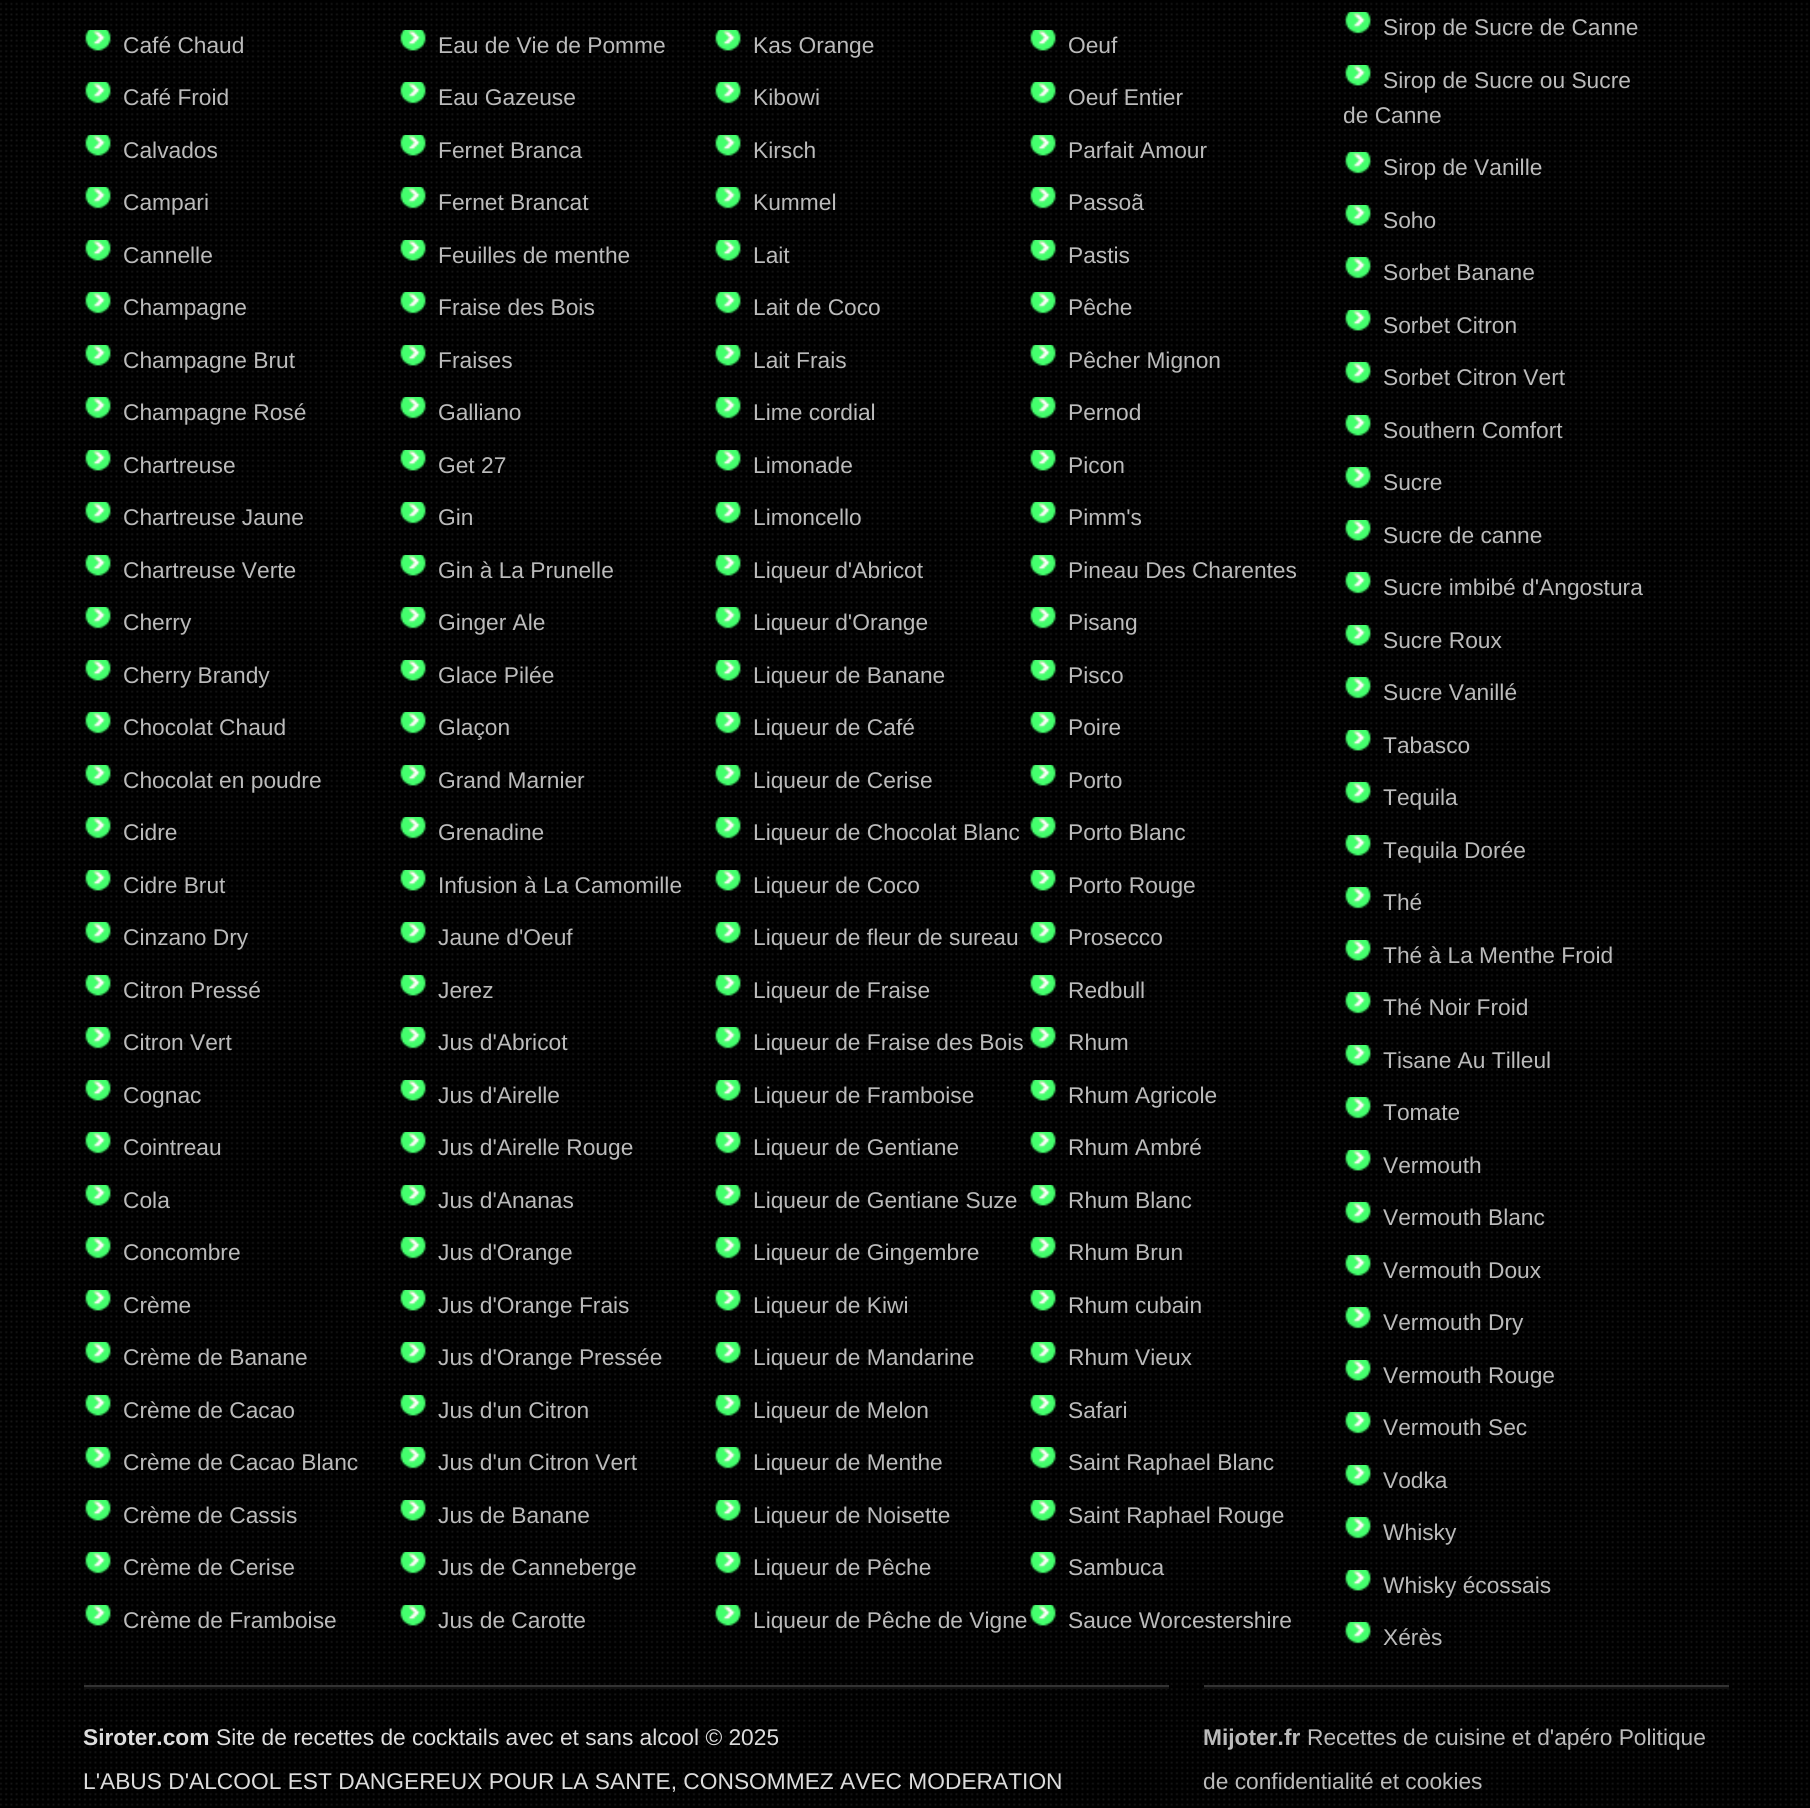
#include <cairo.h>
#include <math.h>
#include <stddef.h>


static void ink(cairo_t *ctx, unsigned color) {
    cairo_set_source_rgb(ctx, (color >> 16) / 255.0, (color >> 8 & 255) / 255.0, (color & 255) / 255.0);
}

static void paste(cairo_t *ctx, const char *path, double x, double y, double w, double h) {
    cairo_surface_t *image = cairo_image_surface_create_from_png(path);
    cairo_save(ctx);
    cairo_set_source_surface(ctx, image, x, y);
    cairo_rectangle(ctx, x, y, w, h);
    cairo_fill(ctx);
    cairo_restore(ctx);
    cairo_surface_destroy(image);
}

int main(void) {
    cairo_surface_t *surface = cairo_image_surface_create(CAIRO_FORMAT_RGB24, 1810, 1808);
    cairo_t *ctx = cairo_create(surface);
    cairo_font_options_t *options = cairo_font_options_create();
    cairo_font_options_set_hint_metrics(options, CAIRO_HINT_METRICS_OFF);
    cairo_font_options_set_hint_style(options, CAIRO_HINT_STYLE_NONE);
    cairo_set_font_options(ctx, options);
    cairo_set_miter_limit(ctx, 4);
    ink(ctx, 0xFFFFFF);
    cairo_paint(ctx);
    paste(ctx, "media/1.png", 0, 0, 1810, 1808);
    paste(ctx, "media/2.png", 85, 30, 26, 21);
    cairo_select_font_face(ctx, "Liberation Sans", CAIRO_FONT_SLANT_NORMAL, CAIRO_FONT_WEIGHT_NORMAL);
    cairo_set_font_size(ctx, 22.75);
    ink(ctx, 0xBBBBBB);
    cairo_move_to(ctx, 123, 53);
    cairo_show_text(ctx, "Café Chaud");
    paste(ctx, "media/3.png", 85, 82, 26, 22);
    cairo_move_to(ctx, 123, 105);
    cairo_show_text(ctx, "Café Froid");
    paste(ctx, "media/2.png", 85, 135, 26, 21);
    cairo_move_to(ctx, 123, 158);
    cairo_show_text(ctx, "Calvados");
    paste(ctx, "media/3.png", 85, 187, 26, 22);
    cairo_move_to(ctx, 123, 210);
    cairo_show_text(ctx, "Campari");
    paste(ctx, "media/2.png", 85, 240, 26, 21);
    cairo_move_to(ctx, 123, 263);
    cairo_show_text(ctx, "Cannelle");
    paste(ctx, "media/3.png", 85, 292, 26, 22);
    cairo_move_to(ctx, 123, 315);
    cairo_show_text(ctx, "Champagne");
    paste(ctx, "media/2.png", 85, 345, 26, 21);
    cairo_move_to(ctx, 123, 368);
    cairo_show_text(ctx, "Champagne Brut");
    paste(ctx, "media/3.png", 85, 397, 26, 22);
    cairo_move_to(ctx, 123, 420);
    cairo_show_text(ctx, "Champagne Rosé");
    paste(ctx, "media/2.png", 85, 450, 26, 21);
    cairo_move_to(ctx, 123, 473);
    cairo_show_text(ctx, "Chartreuse");
    paste(ctx, "media/3.png", 85, 502, 26, 22);
    cairo_move_to(ctx, 123, 525);
    cairo_show_text(ctx, "Chartreuse Jaune");
    paste(ctx, "media/2.png", 85, 555, 26, 21);
    cairo_move_to(ctx, 123, 578);
    cairo_show_text(ctx, "Chartreuse Verte");
    paste(ctx, "media/3.png", 85, 607, 26, 22);
    cairo_move_to(ctx, 123, 630);
    cairo_show_text(ctx, "Cherry");
    paste(ctx, "media/2.png", 85, 660, 26, 21);
    cairo_move_to(ctx, 123, 683);
    cairo_show_text(ctx, "Cherry Brandy");
    paste(ctx, "media/3.png", 85, 712, 26, 22);
    cairo_move_to(ctx, 123, 735);
    cairo_show_text(ctx, "Chocolat Chaud");
    paste(ctx, "media/2.png", 85, 765, 26, 21);
    cairo_move_to(ctx, 123, 788);
    cairo_show_text(ctx, "Chocolat en poudre");
    paste(ctx, "media/3.png", 85, 817, 26, 22);
    cairo_move_to(ctx, 123, 840);
    cairo_show_text(ctx, "Cidre");
    paste(ctx, "media/2.png", 85, 870, 26, 21);
    cairo_move_to(ctx, 123, 893);
    cairo_show_text(ctx, "Cidre Brut");
    paste(ctx, "media/3.png", 85, 922, 26, 22);
    cairo_move_to(ctx, 123, 945);
    cairo_show_text(ctx, "Cinzano Dry");
    paste(ctx, "media/2.png", 85, 975, 26, 21);
    cairo_move_to(ctx, 123, 998);
    cairo_show_text(ctx, "Citron Pressé");
    paste(ctx, "media/3.png", 85, 1027, 26, 22);
    cairo_move_to(ctx, 123, 1050);
    cairo_show_text(ctx, "Citron Vert");
    paste(ctx, "media/2.png", 85, 1080, 26, 21);
    cairo_move_to(ctx, 123, 1103);
    cairo_show_text(ctx, "Cognac");
    paste(ctx, "media/3.png", 85, 1132, 26, 22);
    cairo_move_to(ctx, 123, 1155);
    cairo_show_text(ctx, "Cointreau");
    paste(ctx, "media/2.png", 85, 1185, 26, 21);
    cairo_move_to(ctx, 123, 1208);
    cairo_show_text(ctx, "Cola");
    paste(ctx, "media/3.png", 85, 1237, 26, 22);
    cairo_move_to(ctx, 123, 1260);
    cairo_show_text(ctx, "Concombre");
    paste(ctx, "media/2.png", 85, 1290, 26, 21);
    cairo_move_to(ctx, 123, 1313);
    cairo_show_text(ctx, "Crème");
    paste(ctx, "media/3.png", 85, 1342, 26, 22);
    cairo_move_to(ctx, 123, 1365);
    cairo_show_text(ctx, "Crème de Banane");
    paste(ctx, "media/2.png", 85, 1395, 26, 21);
    cairo_move_to(ctx, 123, 1418);
    cairo_show_text(ctx, "Crème de Cacao");
    paste(ctx, "media/3.png", 85, 1447, 26, 22);
    cairo_move_to(ctx, 123, 1470);
    cairo_show_text(ctx, "Crème de Cacao Blanc");
    paste(ctx, "media/2.png", 85, 1500, 26, 21);
    cairo_move_to(ctx, 123, 1523);
    cairo_show_text(ctx, "Crème de Cassis");
    paste(ctx, "media/3.png", 85, 1552, 26, 22);
    cairo_move_to(ctx, 123, 1575);
    cairo_show_text(ctx, "Crème de Cerise");
    paste(ctx, "media/2.png", 85, 1605, 26, 21);
    cairo_move_to(ctx, 123, 1628);
    cairo_show_text(ctx, "Crème de Framboise");
    paste(ctx, "media/2.png", 400, 30, 26, 21);
    cairo_move_to(ctx, 438, 53);
    cairo_show_text(ctx, "Eau de Vie de Pomme");
    paste(ctx, "media/3.png", 400, 82, 26, 22);
    cairo_move_to(ctx, 438, 105);
    cairo_show_text(ctx, "Eau Gazeuse");
    paste(ctx, "media/2.png", 400, 135, 26, 21);
    cairo_move_to(ctx, 438, 158);
    cairo_show_text(ctx, "Fernet Branca");
    paste(ctx, "media/3.png", 400, 187, 26, 22);
    cairo_move_to(ctx, 438, 210);
    cairo_show_text(ctx, "Fernet Brancat");
    paste(ctx, "media/2.png", 400, 240, 26, 21);
    cairo_move_to(ctx, 438, 263);
    cairo_show_text(ctx, "Feuilles de menthe");
    paste(ctx, "media/3.png", 400, 292, 26, 22);
    cairo_move_to(ctx, 438, 315);
    cairo_show_text(ctx, "Fraise des Bois");
    paste(ctx, "media/2.png", 400, 345, 26, 21);
    cairo_move_to(ctx, 438, 368);
    cairo_show_text(ctx, "Fraises");
    paste(ctx, "media/3.png", 400, 397, 26, 22);
    cairo_move_to(ctx, 438, 420);
    cairo_show_text(ctx, "Galliano");
    paste(ctx, "media/2.png", 400, 450, 26, 21);
    cairo_move_to(ctx, 438, 473);
    cairo_show_text(ctx, "Get 27");
    paste(ctx, "media/3.png", 400, 502, 26, 22);
    cairo_move_to(ctx, 438, 525);
    cairo_show_text(ctx, "Gin");
    paste(ctx, "media/2.png", 400, 555, 26, 21);
    cairo_move_to(ctx, 438, 578);
    cairo_show_text(ctx, "Gin à La Prunelle");
    paste(ctx, "media/3.png", 400, 607, 26, 22);
    cairo_move_to(ctx, 438, 630);
    cairo_show_text(ctx, "Ginger Ale");
    paste(ctx, "media/2.png", 400, 660, 26, 21);
    cairo_move_to(ctx, 438, 683);
    cairo_show_text(ctx, "Glace Pilée");
    paste(ctx, "media/3.png", 400, 712, 26, 22);
    cairo_move_to(ctx, 438, 735);
    cairo_show_text(ctx, "Glaçon");
    paste(ctx, "media/2.png", 400, 765, 26, 21);
    cairo_move_to(ctx, 438, 788);
    cairo_show_text(ctx, "Grand Marnier");
    paste(ctx, "media/3.png", 400, 817, 26, 22);
    cairo_move_to(ctx, 438, 840);
    cairo_show_text(ctx, "Grenadine");
    paste(ctx, "media/2.png", 400, 870, 26, 21);
    cairo_move_to(ctx, 438, 893);
    cairo_show_text(ctx, "Infusion à La Camomille");
    paste(ctx, "media/3.png", 400, 922, 26, 22);
    cairo_move_to(ctx, 438, 945);
    cairo_show_text(ctx, "Jaune d'Oeuf");
    paste(ctx, "media/2.png", 400, 975, 26, 21);
    cairo_move_to(ctx, 438, 998);
    cairo_show_text(ctx, "Jerez");
    paste(ctx, "media/3.png", 400, 1027, 26, 22);
    cairo_move_to(ctx, 438, 1050);
    cairo_show_text(ctx, "Jus d'Abricot");
    paste(ctx, "media/2.png", 400, 1080, 26, 21);
    cairo_move_to(ctx, 438, 1103);
    cairo_show_text(ctx, "Jus d'Airelle");
    paste(ctx, "media/3.png", 400, 1132, 26, 22);
    cairo_move_to(ctx, 438, 1155);
    cairo_show_text(ctx, "Jus d'Airelle Rouge");
    paste(ctx, "media/2.png", 400, 1185, 26, 21);
    cairo_move_to(ctx, 438, 1208);
    cairo_show_text(ctx, "Jus d'Ananas");
    paste(ctx, "media/3.png", 400, 1237, 26, 22);
    cairo_move_to(ctx, 438, 1260);
    cairo_show_text(ctx, "Jus d'Orange");
    paste(ctx, "media/2.png", 400, 1290, 26, 21);
    cairo_move_to(ctx, 438, 1313);
    cairo_show_text(ctx, "Jus d'Orange Frais");
    paste(ctx, "media/3.png", 400, 1342, 26, 22);
    cairo_move_to(ctx, 438, 1365);
    cairo_show_text(ctx, "Jus d'Orange Pressée");
    paste(ctx, "media/2.png", 400, 1395, 26, 21);
    cairo_move_to(ctx, 438, 1418);
    cairo_show_text(ctx, "Jus d'un Citron");
    paste(ctx, "media/3.png", 400, 1447, 26, 22);
    cairo_move_to(ctx, 438, 1470);
    cairo_show_text(ctx, "Jus d'un Citron Vert");
    paste(ctx, "media/2.png", 400, 1500, 26, 21);
    cairo_move_to(ctx, 438, 1523);
    cairo_show_text(ctx, "Jus de Banane");
    paste(ctx, "media/3.png", 400, 1552, 26, 22);
    cairo_move_to(ctx, 438, 1575);
    cairo_show_text(ctx, "Jus de Canneberge");
    paste(ctx, "media/2.png", 400, 1605, 26, 21);
    cairo_move_to(ctx, 438, 1628);
    cairo_show_text(ctx, "Jus de Carotte");
    paste(ctx, "media/2.png", 715, 30, 26, 21);
    cairo_move_to(ctx, 753, 53);
    cairo_show_text(ctx, "Kas Orange");
    paste(ctx, "media/3.png", 715, 82, 26, 22);
    cairo_move_to(ctx, 753, 105);
    cairo_show_text(ctx, "Kibowi");
    paste(ctx, "media/2.png", 715, 135, 26, 21);
    cairo_move_to(ctx, 753, 158);
    cairo_show_text(ctx, "Kirsch");
    paste(ctx, "media/3.png", 715, 187, 26, 22);
    cairo_move_to(ctx, 753, 210);
    cairo_show_text(ctx, "Kummel");
    paste(ctx, "media/2.png", 715, 240, 26, 21);
    cairo_move_to(ctx, 753, 263);
    cairo_show_text(ctx, "Lait");
    paste(ctx, "media/3.png", 715, 292, 26, 22);
    cairo_move_to(ctx, 753, 315);
    cairo_show_text(ctx, "Lait de Coco");
    paste(ctx, "media/2.png", 715, 345, 26, 21);
    cairo_move_to(ctx, 753, 368);
    cairo_show_text(ctx, "Lait Frais");
    paste(ctx, "media/3.png", 715, 397, 26, 22);
    cairo_move_to(ctx, 753, 420);
    cairo_show_text(ctx, "Lime cordial");
    paste(ctx, "media/2.png", 715, 450, 26, 21);
    cairo_move_to(ctx, 753, 473);
    cairo_show_text(ctx, "Limonade");
    paste(ctx, "media/3.png", 715, 502, 26, 22);
    cairo_move_to(ctx, 753, 525);
    cairo_show_text(ctx, "Limoncello");
    paste(ctx, "media/2.png", 715, 555, 26, 21);
    cairo_move_to(ctx, 753, 578);
    cairo_show_text(ctx, "Liqueur d'Abricot");
    paste(ctx, "media/3.png", 715, 607, 26, 22);
    cairo_move_to(ctx, 753, 630);
    cairo_show_text(ctx, "Liqueur d'Orange");
    paste(ctx, "media/2.png", 715, 660, 26, 21);
    cairo_move_to(ctx, 753, 683);
    cairo_show_text(ctx, "Liqueur de Banane");
    paste(ctx, "media/3.png", 715, 712, 26, 22);
    cairo_move_to(ctx, 753, 735);
    cairo_show_text(ctx, "Liqueur de Café");
    paste(ctx, "media/2.png", 715, 765, 26, 21);
    cairo_move_to(ctx, 753, 788);
    cairo_show_text(ctx, "Liqueur de Cerise");
    paste(ctx, "media/3.png", 715, 817, 26, 22);
    cairo_move_to(ctx, 753, 840);
    cairo_show_text(ctx, "Liqueur de Chocolat Blanc");
    paste(ctx, "media/2.png", 715, 870, 26, 21);
    cairo_move_to(ctx, 753, 893);
    cairo_show_text(ctx, "Liqueur de Coco");
    paste(ctx, "media/3.png", 715, 922, 26, 22);
    cairo_move_to(ctx, 753, 945);
    cairo_show_text(ctx, "Liqueur de fleur de sureau");
    paste(ctx, "media/2.png", 715, 975, 26, 21);
    cairo_move_to(ctx, 753, 998);
    cairo_show_text(ctx, "Liqueur de Fraise");
    paste(ctx, "media/3.png", 715, 1027, 26, 22);
    cairo_move_to(ctx, 753, 1050);
    cairo_show_text(ctx, "Liqueur de Fraise des Bois");
    paste(ctx, "media/2.png", 715, 1080, 26, 21);
    cairo_move_to(ctx, 753, 1103);
    cairo_show_text(ctx, "Liqueur de Framboise");
    paste(ctx, "media/3.png", 715, 1132, 26, 22);
    cairo_move_to(ctx, 753, 1155);
    cairo_show_text(ctx, "Liqueur de Gentiane");
    paste(ctx, "media/2.png", 715, 1185, 26, 21);
    cairo_move_to(ctx, 753, 1208);
    cairo_show_text(ctx, "Liqueur de Gentiane Suze");
    paste(ctx, "media/3.png", 715, 1237, 26, 22);
    cairo_move_to(ctx, 753, 1260);
    cairo_show_text(ctx, "Liqueur de Gingembre");
    paste(ctx, "media/2.png", 715, 1290, 26, 21);
    cairo_move_to(ctx, 753, 1313);
    cairo_show_text(ctx, "Liqueur de Kiwi");
    paste(ctx, "media/3.png", 715, 1342, 26, 22);
    cairo_move_to(ctx, 753, 1365);
    cairo_show_text(ctx, "Liqueur de Mandarine");
    paste(ctx, "media/2.png", 715, 1395, 26, 21);
    cairo_move_to(ctx, 753, 1418);
    cairo_show_text(ctx, "Liqueur de Melon");
    paste(ctx, "media/3.png", 715, 1447, 26, 22);
    cairo_move_to(ctx, 753, 1470);
    cairo_show_text(ctx, "Liqueur de Menthe");
    paste(ctx, "media/2.png", 715, 1500, 26, 21);
    cairo_move_to(ctx, 753, 1523);
    cairo_show_text(ctx, "Liqueur de Noisette");
    paste(ctx, "media/3.png", 715, 1552, 26, 22);
    cairo_move_to(ctx, 753, 1575);
    cairo_show_text(ctx, "Liqueur de Pêche");
    paste(ctx, "media/2.png", 715, 1605, 26, 21);
    cairo_move_to(ctx, 753, 1628);
    cairo_show_text(ctx, "Liqueur de Pêche de Vigne");
    paste(ctx, "media/4.png", 1030, 30, 26, 21);
    cairo_move_to(ctx, 1068, 53);
    cairo_show_text(ctx, "Oeuf");
    paste(ctx, "media/5.png", 1030, 82, 26, 22);
    cairo_move_to(ctx, 1068, 105);
    cairo_show_text(ctx, "Oeuf Entier");
    paste(ctx, "media/4.png", 1030, 135, 26, 21);
    cairo_move_to(ctx, 1068, 158);
    cairo_show_text(ctx, "Parfait Amour");
    paste(ctx, "media/5.png", 1030, 187, 26, 22);
    cairo_move_to(ctx, 1068, 210);
    cairo_show_text(ctx, "Passoã");
    paste(ctx, "media/4.png", 1030, 240, 26, 21);
    cairo_move_to(ctx, 1068, 263);
    cairo_show_text(ctx, "Pastis");
    paste(ctx, "media/5.png", 1030, 292, 26, 22);
    cairo_move_to(ctx, 1068, 315);
    cairo_show_text(ctx, "Pêche");
    paste(ctx, "media/4.png", 1030, 345, 26, 21);
    cairo_move_to(ctx, 1068, 368);
    cairo_show_text(ctx, "Pêcher Mignon");
    paste(ctx, "media/5.png", 1030, 397, 26, 22);
    cairo_move_to(ctx, 1068, 420);
    cairo_show_text(ctx, "Pernod");
    paste(ctx, "media/4.png", 1030, 450, 26, 21);
    cairo_move_to(ctx, 1068, 473);
    cairo_show_text(ctx, "Picon");
    paste(ctx, "media/5.png", 1030, 502, 26, 22);
    cairo_move_to(ctx, 1068, 525);
    cairo_show_text(ctx, "Pimm's");
    paste(ctx, "media/4.png", 1030, 555, 26, 21);
    cairo_move_to(ctx, 1068, 578);
    cairo_show_text(ctx, "Pineau Des Charentes");
    paste(ctx, "media/5.png", 1030, 607, 26, 22);
    cairo_move_to(ctx, 1068, 630);
    cairo_show_text(ctx, "Pisang");
    paste(ctx, "media/4.png", 1030, 660, 26, 21);
    cairo_move_to(ctx, 1068, 683);
    cairo_show_text(ctx, "Pisco");
    paste(ctx, "media/5.png", 1030, 712, 26, 22);
    cairo_move_to(ctx, 1068, 735);
    cairo_show_text(ctx, "Poire");
    paste(ctx, "media/4.png", 1030, 765, 26, 21);
    cairo_move_to(ctx, 1068, 788);
    cairo_show_text(ctx, "Porto");
    paste(ctx, "media/5.png", 1030, 817, 26, 22);
    cairo_move_to(ctx, 1068, 840);
    cairo_show_text(ctx, "Porto Blanc");
    paste(ctx, "media/4.png", 1030, 870, 26, 21);
    cairo_move_to(ctx, 1068, 893);
    cairo_show_text(ctx, "Porto Rouge");
    paste(ctx, "media/5.png", 1030, 922, 26, 22);
    cairo_move_to(ctx, 1068, 945);
    cairo_show_text(ctx, "Prosecco");
    paste(ctx, "media/4.png", 1030, 975, 26, 21);
    cairo_move_to(ctx, 1068, 998);
    cairo_show_text(ctx, "Redbull");
    paste(ctx, "media/5.png", 1030, 1027, 26, 22);
    cairo_move_to(ctx, 1068, 1050);
    cairo_show_text(ctx, "Rhum");
    paste(ctx, "media/4.png", 1030, 1080, 26, 21);
    cairo_move_to(ctx, 1068, 1103);
    cairo_show_text(ctx, "Rhum Agricole");
    paste(ctx, "media/5.png", 1030, 1132, 26, 22);
    cairo_move_to(ctx, 1068, 1155);
    cairo_show_text(ctx, "Rhum Ambré");
    paste(ctx, "media/4.png", 1030, 1185, 26, 21);
    cairo_move_to(ctx, 1068, 1208);
    cairo_show_text(ctx, "Rhum Blanc");
    paste(ctx, "media/5.png", 1030, 1237, 26, 22);
    cairo_move_to(ctx, 1068, 1260);
    cairo_show_text(ctx, "Rhum Brun");
    paste(ctx, "media/4.png", 1030, 1290, 26, 21);
    cairo_move_to(ctx, 1068, 1313);
    cairo_show_text(ctx, "Rhum cubain");
    paste(ctx, "media/5.png", 1030, 1342, 26, 22);
    cairo_move_to(ctx, 1068, 1365);
    cairo_show_text(ctx, "Rhum Vieux");
    paste(ctx, "media/4.png", 1030, 1395, 26, 21);
    cairo_move_to(ctx, 1068, 1418);
    cairo_show_text(ctx, "Safari");
    paste(ctx, "media/5.png", 1030, 1447, 26, 22);
    cairo_move_to(ctx, 1068, 1470);
    cairo_show_text(ctx, "Saint Raphael Blanc");
    paste(ctx, "media/4.png", 1030, 1500, 26, 21);
    cairo_move_to(ctx, 1068, 1523);
    cairo_show_text(ctx, "Saint Raphael Rouge");
    paste(ctx, "media/5.png", 1030, 1552, 26, 22);
    cairo_move_to(ctx, 1068, 1575);
    cairo_show_text(ctx, "Sambuca");
    paste(ctx, "media/4.png", 1030, 1605, 26, 21);
    cairo_move_to(ctx, 1068, 1628);
    cairo_show_text(ctx, "Sauce Worcestershire");
    paste(ctx, "media/6.png", 1345, 12, 26, 22);
    cairo_move_to(ctx, 1383, 35);
    cairo_show_text(ctx, "Sirop de Sucre de Canne");
    paste(ctx, "media/7.png", 1345, 65, 26, 21);
    cairo_move_to(ctx, 1383, 88);
    cairo_show_text(ctx, "Sirop de Sucre ou Sucre");
    cairo_move_to(ctx, 1343, 123);
    cairo_show_text(ctx, "de Canne");
    paste(ctx, "media/8.png", 1345, 152, 26, 22);
    cairo_move_to(ctx, 1383, 175);
    cairo_show_text(ctx, "Sirop de Vanille");
    paste(ctx, "media/9.png", 1345, 205, 26, 21);
    cairo_move_to(ctx, 1383, 228);
    cairo_show_text(ctx, "Soho");
    paste(ctx, "media/8.png", 1345, 257, 26, 22);
    cairo_move_to(ctx, 1383, 280);
    cairo_show_text(ctx, "Sorbet Banane");
    paste(ctx, "media/9.png", 1345, 310, 26, 21);
    cairo_move_to(ctx, 1383, 333);
    cairo_show_text(ctx, "Sorbet Citron");
    paste(ctx, "media/8.png", 1345, 362, 26, 22);
    cairo_move_to(ctx, 1383, 385);
    cairo_show_text(ctx, "Sorbet Citron Vert");
    paste(ctx, "media/9.png", 1345, 415, 26, 21);
    cairo_move_to(ctx, 1383, 438);
    cairo_show_text(ctx, "Southern Comfort");
    paste(ctx, "media/8.png", 1345, 467, 26, 22);
    cairo_move_to(ctx, 1383, 490);
    cairo_show_text(ctx, "Sucre");
    paste(ctx, "media/9.png", 1345, 520, 26, 21);
    cairo_move_to(ctx, 1383, 543);
    cairo_show_text(ctx, "Sucre de canne");
    paste(ctx, "media/8.png", 1345, 572, 26, 22);
    cairo_move_to(ctx, 1383, 595);
    cairo_show_text(ctx, "Sucre imbibé d'Angostura");
    paste(ctx, "media/9.png", 1345, 625, 26, 21);
    cairo_move_to(ctx, 1383, 648);
    cairo_show_text(ctx, "Sucre Roux");
    paste(ctx, "media/8.png", 1345, 677, 26, 22);
    cairo_move_to(ctx, 1383, 700);
    cairo_show_text(ctx, "Sucre Vanillé");
    paste(ctx, "media/9.png", 1345, 730, 26, 21);
    cairo_move_to(ctx, 1383, 753);
    cairo_show_text(ctx, "Tabasco");
    paste(ctx, "media/8.png", 1345, 782, 26, 22);
    cairo_move_to(ctx, 1383, 805);
    cairo_show_text(ctx, "Tequila");
    paste(ctx, "media/9.png", 1345, 835, 26, 21);
    cairo_move_to(ctx, 1383, 858);
    cairo_show_text(ctx, "Tequila Dorée");
    paste(ctx, "media/8.png", 1345, 887, 26, 22);
    cairo_move_to(ctx, 1383, 910);
    cairo_show_text(ctx, "Thé");
    paste(ctx, "media/9.png", 1345, 940, 26, 21);
    cairo_move_to(ctx, 1383, 963);
    cairo_show_text(ctx, "Thé à La Menthe Froid");
    paste(ctx, "media/8.png", 1345, 992, 26, 22);
    cairo_move_to(ctx, 1383, 1015);
    cairo_show_text(ctx, "Thé Noir Froid");
    paste(ctx, "media/9.png", 1345, 1045, 26, 21);
    cairo_move_to(ctx, 1383, 1068);
    cairo_show_text(ctx, "Tisane Au Tilleul");
    paste(ctx, "media/8.png", 1345, 1097, 26, 22);
    cairo_move_to(ctx, 1383, 1120);
    cairo_show_text(ctx, "Tomate");
    paste(ctx, "media/9.png", 1345, 1150, 26, 21);
    cairo_move_to(ctx, 1383, 1173);
    cairo_show_text(ctx, "Vermouth");
    paste(ctx, "media/8.png", 1345, 1202, 26, 22);
    cairo_move_to(ctx, 1383, 1225);
    cairo_show_text(ctx, "Vermouth Blanc");
    paste(ctx, "media/9.png", 1345, 1255, 26, 21);
    cairo_move_to(ctx, 1383, 1278);
    cairo_show_text(ctx, "Vermouth Doux");
    paste(ctx, "media/8.png", 1345, 1307, 26, 22);
    cairo_move_to(ctx, 1383, 1330);
    cairo_show_text(ctx, "Vermouth Dry");
    paste(ctx, "media/9.png", 1345, 1360, 26, 21);
    cairo_move_to(ctx, 1383, 1383);
    cairo_show_text(ctx, "Vermouth Rouge");
    paste(ctx, "media/8.png", 1345, 1412, 26, 22);
    cairo_move_to(ctx, 1383, 1435);
    cairo_show_text(ctx, "Vermouth Sec");
    paste(ctx, "media/9.png", 1345, 1465, 26, 21);
    cairo_move_to(ctx, 1383, 1488);
    cairo_show_text(ctx, "Vodka");
    paste(ctx, "media/8.png", 1345, 1517, 26, 22);
    cairo_move_to(ctx, 1383, 1540);
    cairo_show_text(ctx, "Whisky");
    paste(ctx, "media/9.png", 1345, 1570, 26, 21);
    cairo_move_to(ctx, 1383, 1593);
    cairo_show_text(ctx, "Whisky écossais");
    paste(ctx, "media/8.png", 1345, 1622, 26, 22);
    cairo_move_to(ctx, 1383, 1645);
    cairo_show_text(ctx, "Xérès");
    ink(ctx, 0x333333);
    cairo_rectangle(ctx, 84, 1685, 1085, 2);
    cairo_fill(ctx);
    ink(ctx, 0x111111);
    cairo_rectangle(ctx, 84, 1687, 1085, 2);
    cairo_fill(ctx);
    cairo_select_font_face(ctx, "Liberation Sans", CAIRO_FONT_SLANT_NORMAL, CAIRO_FONT_WEIGHT_BOLD);
    ink(ctx, 0xDDDDDD);
    cairo_move_to(ctx, 83, 1745);
    cairo_show_text(ctx, "Siroter.com");
    cairo_select_font_face(ctx, "Liberation Sans", CAIRO_FONT_SLANT_NORMAL, CAIRO_FONT_WEIGHT_NORMAL);
    cairo_move_to(ctx, 216, 1745);
    cairo_show_text(ctx, "Site de recettes de cocktails avec et sans alcool © 2025");
    cairo_move_to(ctx, 83, 1789);
    cairo_show_text(ctx, "L'ABUS D'ALCOOL EST DANGEREUX POUR LA SANTE, CONSOMMEZ AVEC MODERATION");
    ink(ctx, 0x333333);
    cairo_rectangle(ctx, 1204, 1685, 525, 2);
    cairo_fill(ctx);
    ink(ctx, 0x111111);
    cairo_rectangle(ctx, 1204, 1687, 525, 2);
    cairo_fill(ctx);
    cairo_select_font_face(ctx, "Liberation Sans", CAIRO_FONT_SLANT_NORMAL, CAIRO_FONT_WEIGHT_BOLD);
    ink(ctx, 0xBBBBBB);
    cairo_move_to(ctx, 1203, 1745);
    cairo_show_text(ctx, "Mijoter.fr");
    cairo_select_font_face(ctx, "Liberation Sans", CAIRO_FONT_SLANT_NORMAL, CAIRO_FONT_WEIGHT_NORMAL);
    cairo_move_to(ctx, 1307, 1745);
    cairo_show_text(ctx, "Recettes de cuisine et d'apéro Politique");
    cairo_move_to(ctx, 1203, 1789);
    cairo_show_text(ctx, "de confidentialité et cookies");
    cairo_surface_write_to_png(surface, "image.png");
    cairo_font_options_destroy(options);
    cairo_destroy(ctx);
    cairo_surface_destroy(surface);
    return 0;
}
